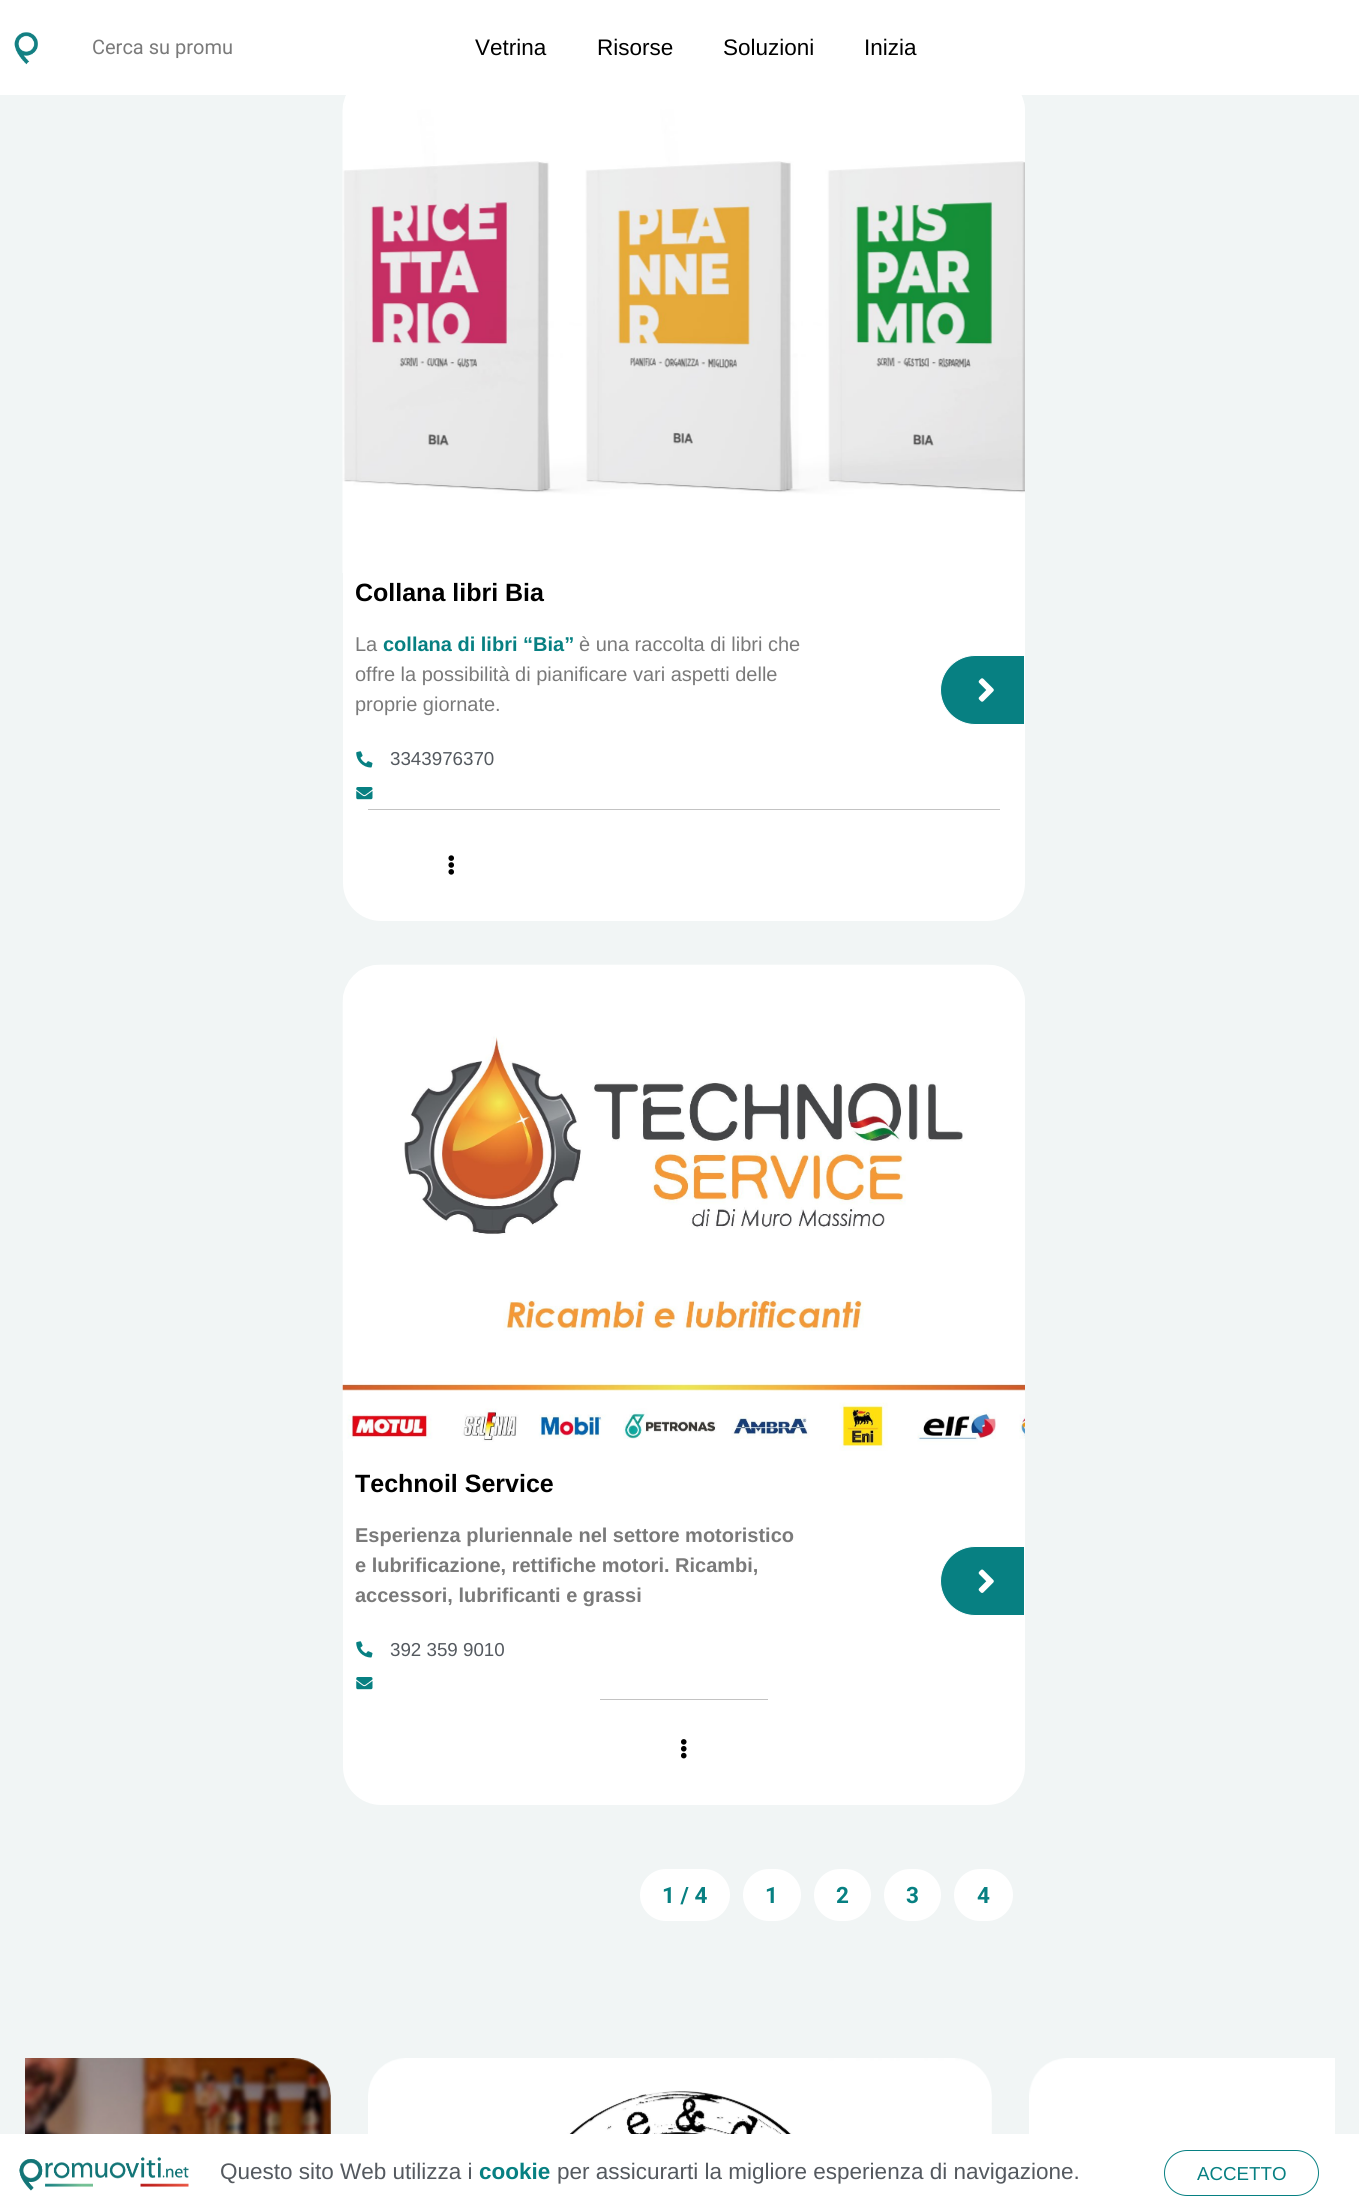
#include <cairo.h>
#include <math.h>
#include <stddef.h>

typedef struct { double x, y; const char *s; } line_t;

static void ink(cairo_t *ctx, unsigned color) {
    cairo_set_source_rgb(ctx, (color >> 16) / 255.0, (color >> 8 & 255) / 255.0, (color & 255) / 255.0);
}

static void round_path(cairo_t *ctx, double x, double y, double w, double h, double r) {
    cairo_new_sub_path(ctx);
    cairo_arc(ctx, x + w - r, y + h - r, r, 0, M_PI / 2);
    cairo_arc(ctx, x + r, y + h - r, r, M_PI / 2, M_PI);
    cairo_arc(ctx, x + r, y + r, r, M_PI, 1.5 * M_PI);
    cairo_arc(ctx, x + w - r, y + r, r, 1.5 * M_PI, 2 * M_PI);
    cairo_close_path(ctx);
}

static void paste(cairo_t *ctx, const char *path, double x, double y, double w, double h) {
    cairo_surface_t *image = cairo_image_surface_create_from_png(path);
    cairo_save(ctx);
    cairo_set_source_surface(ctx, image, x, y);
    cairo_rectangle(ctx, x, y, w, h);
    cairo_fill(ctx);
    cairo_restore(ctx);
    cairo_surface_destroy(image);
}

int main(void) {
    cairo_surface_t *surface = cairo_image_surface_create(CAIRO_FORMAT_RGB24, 1359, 2211);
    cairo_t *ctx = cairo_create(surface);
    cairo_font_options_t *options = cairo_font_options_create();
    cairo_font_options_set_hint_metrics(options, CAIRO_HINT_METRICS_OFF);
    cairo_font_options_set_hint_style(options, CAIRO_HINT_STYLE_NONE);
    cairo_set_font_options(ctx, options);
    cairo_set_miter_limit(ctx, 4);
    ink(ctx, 0xF1F5F5);
    cairo_paint(ctx);
    ink(ctx, 0xFFFFFF);
    round_path(ctx, 343, 74, 682, 847, 38);
    cairo_fill(ctx);
    cairo_rectangle(ctx, 0, 0, 1359, 95);
    cairo_fill(ctx);
    paste(ctx, "media/1.png", 14, 32, 24, 33);
    cairo_select_font_face(ctx, "Roboto", CAIRO_FONT_SLANT_NORMAL, CAIRO_FONT_WEIGHT_NORMAL);
    cairo_set_font_size(ctx, 20);
    ink(ctx, 0x7A7A7A);
    cairo_move_to(ctx, 92, 54);
    cairo_show_text(ctx, "Cerca su promu");
    cairo_select_font_face(ctx, "Liberation Sans", CAIRO_FONT_SLANT_NORMAL, CAIRO_FONT_WEIGHT_NORMAL);
    cairo_set_font_size(ctx, 22.5);
    ink(ctx, 0x000000);
    {
        static const line_t items[] = {
            {475, 55, "Vetrina"},
            {597, 55, "Risorse"},
            {723, 55, "Soluzioni"},
            {864, 55, "Inizia"},
        };
        for (size_t i = 0; i < sizeof items / sizeof *items; i++) {
            cairo_move_to(ctx, items[i].x, items[i].y);
            cairo_show_text(ctx, items[i].s);
        }
    }
    paste(ctx, "media/2.png", 342, 95, 683, 478);
    cairo_select_font_face(ctx, "Liberation Sans", CAIRO_FONT_SLANT_NORMAL, CAIRO_FONT_WEIGHT_BOLD);
    cairo_set_font_size(ctx, 25);
    cairo_move_to(ctx, 355, 601);
    cairo_show_text(ctx, "Collana libri Bia");
    cairo_select_font_face(ctx, "Liberation Sans", CAIRO_FONT_SLANT_NORMAL, CAIRO_FONT_WEIGHT_NORMAL);
    cairo_set_font_size(ctx, 20);
    ink(ctx, 0x7A7A7A);
    cairo_move_to(ctx, 355, 651);
    cairo_show_text(ctx, "La");
    cairo_select_font_face(ctx, "Liberation Sans", CAIRO_FONT_SLANT_NORMAL, CAIRO_FONT_WEIGHT_BOLD);
    ink(ctx, 0x078082);
    cairo_move_to(ctx, 383, 651);
    cairo_show_text(ctx, "collana di libri “Bia”");
    cairo_select_font_face(ctx, "Liberation Sans", CAIRO_FONT_SLANT_NORMAL, CAIRO_FONT_WEIGHT_NORMAL);
    ink(ctx, 0x7A7A7A);
    {
        static const line_t items[] = {
            {579, 651, "è una raccolta di libri che"},
            {355, 681, "offre la possibilità di pianificare vari aspetti delle"},
            {355, 711, "proprie giornate."},
        };
        for (size_t i = 0; i < sizeof items / sizeof *items; i++) {
            cairo_move_to(ctx, items[i].x, items[i].y);
            cairo_show_text(ctx, items[i].s);
        }
    }
    paste(ctx, "media/3.png", 356, 751, 17, 17);
    cairo_set_font_size(ctx, 18.75);
    ink(ctx, 0x54595F);
    cairo_move_to(ctx, 390, 765);
    cairo_show_text(ctx, "3343976370");
    paste(ctx, "media/4.png", 356, 787, 17, 13);
    ink(ctx, 0x078082);
    cairo_new_path(ctx);
    cairo_move_to(ctx, 975, 655.5);
    cairo_line_to(ctx, 1024.5, 655.5);
    cairo_line_to(ctx, 1024.5, 724.5);
    cairo_line_to(ctx, 975, 724.5);
    cairo_curve_to(ctx, 956, 724.5, 940.5, 709, 940.5, 690);
    cairo_curve_to(ctx, 940.5, 671, 956, 655.5, 975, 655.5);
    cairo_close_path(ctx);
    cairo_fill_preserve(ctx);
    ink(ctx, 0xFFFFFF);
    cairo_set_line_width(ctx, 1);
    cairo_stroke(ctx);
    paste(ctx, "media/5.png", 978, 678, 16, 24);
    ink(ctx, 0xC3C3C3);
    cairo_rectangle(ctx, 368, 809, 632, 1);
    cairo_fill(ctx);
    paste(ctx, "media/6.png", 448, 855, 6, 20);
    ink(ctx, 0xFFFFFF);
    round_path(ctx, 343, 965, 682, 840, 38);
    cairo_fill(ctx);
    paste(ctx, "media/7.png", 342, 964, 683, 487);
    cairo_select_font_face(ctx, "Liberation Sans", CAIRO_FONT_SLANT_NORMAL, CAIRO_FONT_WEIGHT_BOLD);
    cairo_set_font_size(ctx, 25);
    ink(ctx, 0x000000);
    cairo_move_to(ctx, 355, 1492);
    cairo_show_text(ctx, "Technoil Service");
    cairo_set_font_size(ctx, 20);
    ink(ctx, 0x7A7A7A);
    {
        static const line_t items[] = {
            {355, 1542, "Esperienza pluriennale nel settore motoristico"},
            {355, 1572, "e lubrificazione, rettifiche motori. Ricambi,"},
            {355, 1602, "accessori, lubrificanti e grassi"},
        };
        for (size_t i = 0; i < sizeof items / sizeof *items; i++) {
            cairo_move_to(ctx, items[i].x, items[i].y);
            cairo_show_text(ctx, items[i].s);
        }
    }
    paste(ctx, "media/3.png", 356, 1641, 17, 17);
    cairo_select_font_face(ctx, "Liberation Sans", CAIRO_FONT_SLANT_NORMAL, CAIRO_FONT_WEIGHT_NORMAL);
    cairo_set_font_size(ctx, 18.75);
    ink(ctx, 0x54595F);
    cairo_move_to(ctx, 390, 1656);
    cairo_show_text(ctx, "392 359 9010");
    paste(ctx, "media/4.png", 356, 1677, 17, 13);
    ink(ctx, 0x078082);
    cairo_new_path(ctx);
    cairo_move_to(ctx, 975, 1546.5);
    cairo_line_to(ctx, 1024.5, 1546.5);
    cairo_line_to(ctx, 1024.5, 1615.5);
    cairo_line_to(ctx, 975, 1615.5);
    cairo_curve_to(ctx, 956, 1615.5, 940.5, 1600, 940.5, 1581);
    cairo_curve_to(ctx, 940.5, 1562, 956, 1546.5, 975, 1546.5);
    cairo_close_path(ctx);
    cairo_fill_preserve(ctx);
    ink(ctx, 0xFFFFFF);
    cairo_stroke(ctx);
    paste(ctx, "media/8.png", 978, 1569, 16, 24);
    ink(ctx, 0xC3C3C3);
    cairo_rectangle(ctx, 600, 1699, 168, 1);
    cairo_fill(ctx);
    paste(ctx, "media/9.png", 681, 1739, 6, 20);
    ink(ctx, 0xFFFFFF);
    round_path(ctx, 640, 1869, 90, 52, 26);
    cairo_fill(ctx);
    cairo_select_font_face(ctx, "Roboto", CAIRO_FONT_SLANT_NORMAL, CAIRO_FONT_WEIGHT_BOLD);
    cairo_set_font_size(ctx, 22.5);
    ink(ctx, 0x078082);
    cairo_move_to(ctx, 662, 1903);
    cairo_show_text(ctx, "1 / 4");
    ink(ctx, 0xFFFFFF);
    round_path(ctx, 743, 1869, 58, 52, 26);
    cairo_fill(ctx);
    ink(ctx, 0x078082);
    cairo_move_to(ctx, 765, 1903);
    cairo_show_text(ctx, "1");
    ink(ctx, 0xFFFFFF);
    round_path(ctx, 814, 1869, 57, 52, 26);
    cairo_fill(ctx);
    ink(ctx, 0x078082);
    cairo_move_to(ctx, 836, 1903);
    cairo_show_text(ctx, "2");
    ink(ctx, 0xFFFFFF);
    round_path(ctx, 884, 1869, 57, 52, 26);
    cairo_fill(ctx);
    ink(ctx, 0x078082);
    cairo_move_to(ctx, 906, 1903);
    cairo_show_text(ctx, "3");
    ink(ctx, 0xFFFFFF);
    round_path(ctx, 954, 1869, 59, 52, 26);
    cairo_fill(ctx);
    ink(ctx, 0x078082);
    cairo_move_to(ctx, 977, 1903);
    cairo_show_text(ctx, "4");
    paste(ctx, "media/10.png", 25, 2058, 306, 76);
    paste(ctx, "media/11.png", 368, 2058, 624, 76);
    paste(ctx, "media/12.png", 1029, 2058, 306, 76);
    ink(ctx, 0xFFFFFF);
    cairo_rectangle(ctx, 0, 2134, 1359, 77);
    cairo_fill(ctx);
    paste(ctx, "media/13.png", 19, 2157, 170, 34);
    cairo_select_font_face(ctx, "Liberation Sans", CAIRO_FONT_SLANT_NORMAL, CAIRO_FONT_WEIGHT_NORMAL);
    ink(ctx, 0x54595F);
    cairo_move_to(ctx, 220, 2179);
    cairo_show_text(ctx, "Questo sito Web utilizza i");
    cairo_select_font_face(ctx, "Liberation Sans", CAIRO_FONT_SLANT_NORMAL, CAIRO_FONT_WEIGHT_BOLD);
    ink(ctx, 0x078082);
    cairo_move_to(ctx, 479, 2179);
    cairo_show_text(ctx, "cookie");
    cairo_select_font_face(ctx, "Liberation Sans", CAIRO_FONT_SLANT_NORMAL, CAIRO_FONT_WEIGHT_NORMAL);
    ink(ctx, 0x54595F);
    cairo_move_to(ctx, 557, 2179);
    cairo_show_text(ctx, "per assicurarti la migliore esperienza di navigazione.");
    round_path(ctx, 1164.5, 2150.5, 154, 45, 22.5);
    ink(ctx, 0x078082);
    cairo_stroke(ctx);
    cairo_set_font_size(ctx, 18.75);
    cairo_move_to(ctx, 1197, 2180);
    cairo_show_text(ctx, "ACCETTO");
    cairo_surface_write_to_png(surface, "image.png");
    cairo_font_options_destroy(options);
    cairo_destroy(ctx);
    cairo_surface_destroy(surface);
    return 0;
}
